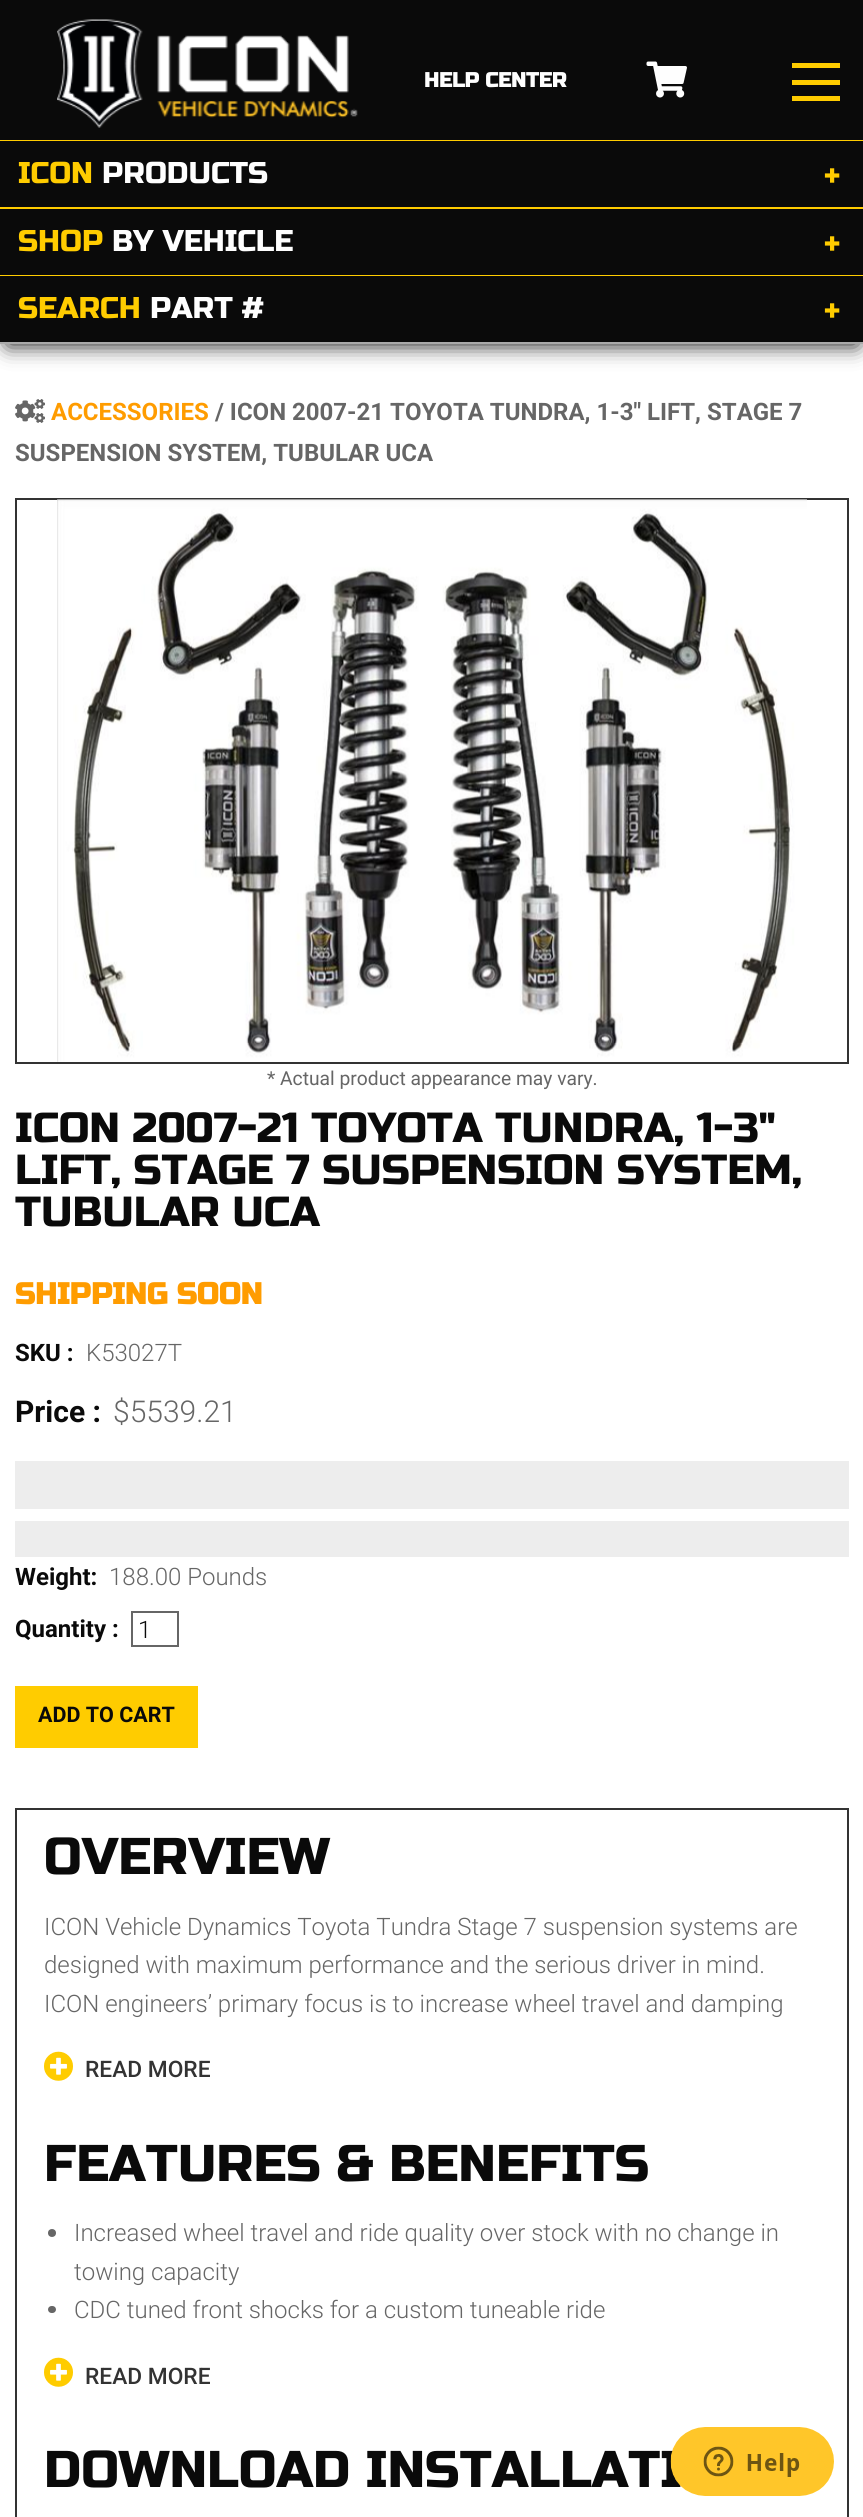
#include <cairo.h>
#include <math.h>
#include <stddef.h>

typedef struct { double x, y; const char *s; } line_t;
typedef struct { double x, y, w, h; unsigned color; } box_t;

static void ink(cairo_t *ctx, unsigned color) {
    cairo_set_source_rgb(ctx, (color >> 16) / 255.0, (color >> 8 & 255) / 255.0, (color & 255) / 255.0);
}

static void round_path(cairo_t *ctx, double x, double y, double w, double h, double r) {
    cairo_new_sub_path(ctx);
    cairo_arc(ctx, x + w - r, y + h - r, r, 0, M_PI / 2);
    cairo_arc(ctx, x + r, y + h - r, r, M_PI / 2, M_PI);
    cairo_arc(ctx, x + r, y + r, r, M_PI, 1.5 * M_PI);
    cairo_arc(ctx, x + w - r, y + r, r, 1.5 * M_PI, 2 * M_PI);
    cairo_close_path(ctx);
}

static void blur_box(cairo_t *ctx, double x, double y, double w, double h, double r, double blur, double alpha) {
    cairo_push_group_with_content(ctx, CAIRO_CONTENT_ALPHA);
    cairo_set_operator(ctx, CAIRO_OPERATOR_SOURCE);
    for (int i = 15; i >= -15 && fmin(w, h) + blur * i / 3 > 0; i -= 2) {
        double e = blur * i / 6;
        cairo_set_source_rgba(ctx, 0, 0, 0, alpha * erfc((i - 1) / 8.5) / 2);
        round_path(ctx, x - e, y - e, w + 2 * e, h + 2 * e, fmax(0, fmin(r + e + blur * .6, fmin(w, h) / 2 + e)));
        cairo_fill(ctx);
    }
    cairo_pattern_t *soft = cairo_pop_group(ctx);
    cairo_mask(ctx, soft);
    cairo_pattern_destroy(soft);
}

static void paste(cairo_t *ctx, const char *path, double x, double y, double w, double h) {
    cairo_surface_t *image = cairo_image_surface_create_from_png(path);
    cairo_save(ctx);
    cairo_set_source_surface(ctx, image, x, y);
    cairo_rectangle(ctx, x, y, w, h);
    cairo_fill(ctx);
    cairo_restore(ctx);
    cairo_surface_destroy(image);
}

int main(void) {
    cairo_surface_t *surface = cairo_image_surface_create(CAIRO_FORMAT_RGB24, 863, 2517);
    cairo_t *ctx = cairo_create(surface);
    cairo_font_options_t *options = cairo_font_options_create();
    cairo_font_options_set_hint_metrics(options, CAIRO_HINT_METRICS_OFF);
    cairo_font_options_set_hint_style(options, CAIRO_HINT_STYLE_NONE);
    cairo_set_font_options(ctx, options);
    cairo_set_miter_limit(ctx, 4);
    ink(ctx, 0xFFFFFF);
    cairo_paint(ctx);
    ink(ctx, 0x000000);
    blur_box(ctx, 8, 15, 849, 329, 0, 11, 1);
    ink(ctx, 0x0A0A0A);
    cairo_rectangle(ctx, 0, 0, 863, 140);
    cairo_fill(ctx);
    ink(ctx, 0xFFCC00);
    cairo_rectangle(ctx, 0, 140, 863, 1);
    cairo_fill(ctx);
    paste(ctx, "media/1.png", 57, 19, 301, 109);
    cairo_select_font_face(ctx, "Russo One", CAIRO_FONT_SLANT_NORMAL, CAIRO_FONT_WEIGHT_BOLD);
    cairo_set_font_size(ctx, 20.5);
    ink(ctx, 0xFEFEFE);
    cairo_move_to(ctx, 424, 87);
    cairo_show_text(ctx, "HELP CENTER");
    paste(ctx, "media/2.png", 646, 61, 41, 37);
    {
        static const box_t items[] = {
            {792, 96, 48, 5, 0xFFCC00},
            {792, 80, 48, 5, 0xFFCC00},
            {792, 63, 48, 5, 0xFFCC00},
            {0, 141, 863, 66, 0x0A0A0A},
            {0, 207, 863, 2, 0xFFCC00},
        };
        for (size_t i = 0; i < sizeof items / sizeof *items; i++) {
            ink(ctx, items[i].color);
            cairo_rectangle(ctx, items[i].x, items[i].y, items[i].w, items[i].h);
            cairo_fill(ctx);
        }
    }
    cairo_select_font_face(ctx, "Russo One", CAIRO_FONT_SLANT_NORMAL, CAIRO_FONT_WEIGHT_NORMAL);
    cairo_set_font_size(ctx, 30);
    cairo_move_to(ctx, 18, 183);
    cairo_show_text(ctx, "ICON");
    ink(ctx, 0xFEFEFE);
    cairo_move_to(ctx, 102, 183);
    cairo_show_text(ctx, "PRODUCTS");
    ink(ctx, 0xFFCC00);
    cairo_move_to(ctx, 824, 186);
    cairo_show_text(ctx, "+");
    ink(ctx, 0x0A0A0A);
    cairo_rectangle(ctx, 0, 209, 863, 66);
    cairo_fill(ctx);
    ink(ctx, 0xFFCC00);
    cairo_rectangle(ctx, 0, 275, 863, 1);
    cairo_fill(ctx);
    cairo_move_to(ctx, 18, 251);
    cairo_show_text(ctx, "SHOP");
    ink(ctx, 0xFEFEFE);
    cairo_move_to(ctx, 112, 251);
    cairo_show_text(ctx, "BY VEHICLE");
    ink(ctx, 0xFFCC00);
    cairo_move_to(ctx, 824, 254);
    cairo_show_text(ctx, "+");
    ink(ctx, 0x0A0A0A);
    cairo_rectangle(ctx, 0, 276, 863, 66);
    cairo_fill(ctx);
    ink(ctx, 0xAAAAAA);
    cairo_rectangle(ctx, 0, 342, 863, 2);
    cairo_fill(ctx);
    ink(ctx, 0xFFCC00);
    cairo_move_to(ctx, 18, 318);
    cairo_show_text(ctx, "SEARCH");
    ink(ctx, 0xFEFEFE);
    cairo_move_to(ctx, 150, 318);
    cairo_show_text(ctx, "PART #");
    ink(ctx, 0xFFCC00);
    cairo_move_to(ctx, 824, 321);
    cairo_show_text(ctx, "+");
    paste(ctx, "media/3.png", 15, 399, 30, 24);
    cairo_select_font_face(ctx, "Roboto", CAIRO_FONT_SLANT_NORMAL, CAIRO_FONT_WEIGHT_BOLD);
    cairo_set_font_size(ctx, 24);
    ink(ctx, 0xFF9C00);
    cairo_move_to(ctx, 51, 420);
    cairo_show_text(ctx, "ACCESSORIES");
    ink(ctx, 0x666666);
    cairo_move_to(ctx, 215, 420);
    cairo_show_text(ctx, "/ ICON 2007-21 TOYOTA TUNDRA, 1-3\" LIFT, STAGE 7");
    cairo_move_to(ctx, 15, 461);
    cairo_show_text(ctx, "SUSPENSION SYSTEM, TUBULAR UCA");
    cairo_rectangle(ctx, 16, 499, 832, 564);
    ink(ctx, 0x333333);
    cairo_stroke(ctx);
    paste(ctx, "media/4.png", 57, 499, 750, 563);
    cairo_select_font_face(ctx, "Roboto", CAIRO_FONT_SLANT_NORMAL, CAIRO_FONT_WEIGHT_NORMAL);
    cairo_set_font_size(ctx, 19.25);
    ink(ctx, 0x666666);
    cairo_move_to(ctx, 267, 1085);
    cairo_show_text(ctx, "* Actual product appearance may vary.");
    cairo_select_font_face(ctx, "Russo One", CAIRO_FONT_SLANT_NORMAL, CAIRO_FONT_WEIGHT_NORMAL);
    cairo_set_font_size(ctx, 42);
    ink(ctx, 0x0A0A0A);
    {
        static const line_t items[] = {
            {15, 1142, "ICON 2007-21 TOYOTA TUNDRA, 1-3\""},
            {15, 1184, "LIFT, STAGE 7 SUSPENSION SYSTEM,"},
            {15, 1226, "TUBULAR UCA"},
        };
        for (size_t i = 0; i < sizeof items / sizeof *items; i++) {
            cairo_move_to(ctx, items[i].x, items[i].y);
            cairo_show_text(ctx, items[i].s);
        }
    }
    cairo_select_font_face(ctx, "Russo One", CAIRO_FONT_SLANT_NORMAL, CAIRO_FONT_WEIGHT_BOLD);
    cairo_set_font_size(ctx, 30);
    ink(ctx, 0xFF9C00);
    cairo_move_to(ctx, 15, 1304);
    cairo_show_text(ctx, "SHIPPING SOON");
    cairo_select_font_face(ctx, "Roboto", CAIRO_FONT_SLANT_NORMAL, CAIRO_FONT_WEIGHT_BOLD);
    cairo_set_font_size(ctx, 24);
    ink(ctx, 0x0A0A0A);
    cairo_move_to(ctx, 15, 1361);
    cairo_show_text(ctx, "SKU :");
    cairo_select_font_face(ctx, "Roboto Light", CAIRO_FONT_SLANT_NORMAL, CAIRO_FONT_WEIGHT_NORMAL);
    ink(ctx, 0x666666);
    cairo_move_to(ctx, 86, 1361);
    cairo_show_text(ctx, "K53027T");
    cairo_select_font_face(ctx, "Roboto", CAIRO_FONT_SLANT_NORMAL, CAIRO_FONT_WEIGHT_BOLD);
    cairo_set_font_size(ctx, 30);
    ink(ctx, 0x0A0A0A);
    cairo_move_to(ctx, 15, 1422);
    cairo_show_text(ctx, "Price :");
    cairo_select_font_face(ctx, "Roboto Light", CAIRO_FONT_SLANT_NORMAL, CAIRO_FONT_WEIGHT_NORMAL);
    ink(ctx, 0x666666);
    cairo_move_to(ctx, 113, 1422);
    cairo_show_text(ctx, "$5539.21");
    ink(ctx, 0xEDEDED);
    cairo_rectangle(ctx, 15, 1461, 834, 48);
    cairo_fill(ctx);
    cairo_rectangle(ctx, 15, 1521, 834, 36);
    cairo_fill(ctx);
    cairo_select_font_face(ctx, "Roboto", CAIRO_FONT_SLANT_NORMAL, CAIRO_FONT_WEIGHT_BOLD);
    cairo_set_font_size(ctx, 24);
    ink(ctx, 0x0A0A0A);
    cairo_move_to(ctx, 15, 1585);
    cairo_show_text(ctx, "Weight:");
    cairo_select_font_face(ctx, "Roboto Light", CAIRO_FONT_SLANT_NORMAL, CAIRO_FONT_WEIGHT_NORMAL);
    ink(ctx, 0x666666);
    cairo_move_to(ctx, 109, 1585);
    cairo_show_text(ctx, "188.00 Pounds");
    cairo_select_font_face(ctx, "Roboto", CAIRO_FONT_SLANT_NORMAL, CAIRO_FONT_WEIGHT_BOLD);
    ink(ctx, 0x0A0A0A);
    cairo_move_to(ctx, 15, 1637);
    cairo_show_text(ctx, "Quantity :");
    cairo_rectangle(ctx, 132, 1612, 46, 34);
    ink(ctx, 0x666666);
    cairo_stroke(ctx);
    cairo_select_font_face(ctx, "Roboto Light", CAIRO_FONT_SLANT_NORMAL, CAIRO_FONT_WEIGHT_NORMAL);
    ink(ctx, 0x0A0A0A);
    cairo_move_to(ctx, 138, 1638);
    cairo_show_text(ctx, "1");
    ink(ctx, 0xFFCC00);
    cairo_rectangle(ctx, 15, 1686, 183, 62);
    cairo_fill(ctx);
    cairo_select_font_face(ctx, "Roboto", CAIRO_FONT_SLANT_NORMAL, CAIRO_FONT_WEIGHT_BOLD);
    cairo_set_font_size(ctx, 21.5);
    ink(ctx, 0x0A0A0A);
    cairo_move_to(ctx, 38, 1722);
    cairo_show_text(ctx, "ADD TO CART");
    cairo_rectangle(ctx, 16, 1809, 832, 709);
    ink(ctx, 0x333333);
    cairo_stroke(ctx);
    cairo_select_font_face(ctx, "Russo One", CAIRO_FONT_SLANT_NORMAL, CAIRO_FONT_WEIGHT_NORMAL);
    cairo_set_font_size(ctx, 51.6);
    ink(ctx, 0x0A0A0A);
    cairo_move_to(ctx, 44, 1874);
    cairo_show_text(ctx, "OVERVIEW");
    cairo_select_font_face(ctx, "Roboto Light", CAIRO_FONT_SLANT_NORMAL, CAIRO_FONT_WEIGHT_NORMAL);
    cairo_set_font_size(ctx, 24);
    ink(ctx, 0x666666);
    {
        static const line_t items[] = {
            {44, 1935, "ICON Vehicle Dynamics Toyota Tundra Stage 7 suspension systems are"},
            {44, 1973, "designed with maximum performance and the serious driver in mind."},
            {44, 2012, "ICON engineers’ primary focus is to increase wheel travel and damping"},
        };
        for (size_t i = 0; i < sizeof items / sizeof *items; i++) {
            cairo_move_to(ctx, items[i].x, items[i].y);
            cairo_show_text(ctx, items[i].s);
        }
    }
    paste(ctx, "media/5.png", 44, 2051, 29, 30);
    cairo_select_font_face(ctx, "Roboto Medium", CAIRO_FONT_SLANT_NORMAL, CAIRO_FONT_WEIGHT_NORMAL);
    cairo_set_font_size(ctx, 22.75);
    ink(ctx, 0x333333);
    cairo_move_to(ctx, 85, 2077);
    cairo_show_text(ctx, "READ MORE");
    cairo_select_font_face(ctx, "Russo One", CAIRO_FONT_SLANT_NORMAL, CAIRO_FONT_WEIGHT_NORMAL);
    cairo_set_font_size(ctx, 51.6);
    ink(ctx, 0x0A0A0A);
    cairo_move_to(ctx, 44, 2181);
    cairo_show_text(ctx, "FEATURES & BENEFITS");
    ink(ctx, 0x666666);
    cairo_new_path(ctx);
    cairo_arc(ctx, 52, 2233, 4, 0, 2 * M_PI);
    cairo_fill(ctx);
    cairo_select_font_face(ctx, "Roboto Light", CAIRO_FONT_SLANT_NORMAL, CAIRO_FONT_WEIGHT_NORMAL);
    cairo_set_font_size(ctx, 24);
    cairo_move_to(ctx, 74, 2241);
    cairo_show_text(ctx, "Increased wheel travel and ride quality over stock with no change in");
    cairo_move_to(ctx, 74, 2280);
    cairo_show_text(ctx, "towing capacity");
    round_path(ctx, 48, 2306, 8, 7, 3.5);
    cairo_fill(ctx);
    cairo_move_to(ctx, 74, 2318);
    cairo_show_text(ctx, "CDC tuned front shocks for a custom tuneable ride");
    paste(ctx, "media/5.png", 44, 2357, 29, 30);
    cairo_select_font_face(ctx, "Roboto Medium", CAIRO_FONT_SLANT_NORMAL, CAIRO_FONT_WEIGHT_NORMAL);
    cairo_set_font_size(ctx, 22.75);
    ink(ctx, 0x333333);
    cairo_move_to(ctx, 85, 2384);
    cairo_show_text(ctx, "READ MORE");
    cairo_select_font_face(ctx, "Russo One", CAIRO_FONT_SLANT_NORMAL, CAIRO_FONT_WEIGHT_NORMAL);
    cairo_set_font_size(ctx, 51.6);
    ink(ctx, 0x0A0A0A);
    cairo_move_to(ctx, 44, 2487);
    cairo_show_text(ctx, "DOWNLOAD INSTALLATI");
    paste(ctx, "media/6.png", 670, 2427, 164, 69);
    cairo_surface_write_to_png(surface, "image.png");
    cairo_font_options_destroy(options);
    cairo_destroy(ctx);
    cairo_surface_destroy(surface);
    return 0;
}
